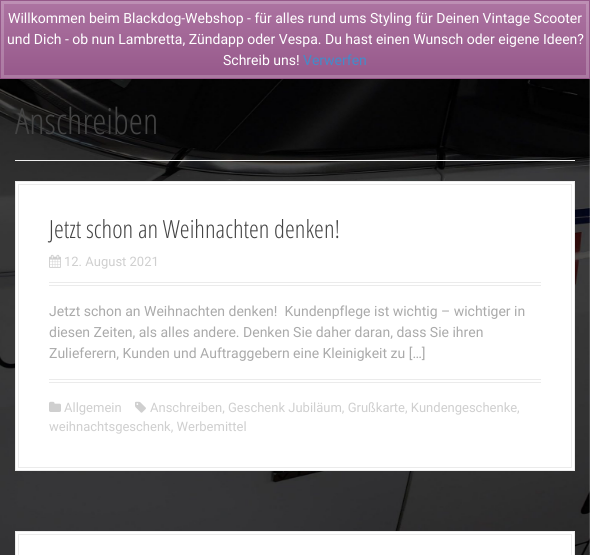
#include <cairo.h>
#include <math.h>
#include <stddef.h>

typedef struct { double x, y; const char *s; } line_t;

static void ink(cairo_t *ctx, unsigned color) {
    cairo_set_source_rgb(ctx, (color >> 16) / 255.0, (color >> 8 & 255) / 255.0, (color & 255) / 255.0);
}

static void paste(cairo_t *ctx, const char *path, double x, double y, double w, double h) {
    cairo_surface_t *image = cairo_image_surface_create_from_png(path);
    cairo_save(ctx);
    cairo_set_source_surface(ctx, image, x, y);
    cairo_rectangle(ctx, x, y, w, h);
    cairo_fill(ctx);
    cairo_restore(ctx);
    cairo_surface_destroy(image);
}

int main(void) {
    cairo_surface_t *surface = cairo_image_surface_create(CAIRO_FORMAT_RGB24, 590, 555);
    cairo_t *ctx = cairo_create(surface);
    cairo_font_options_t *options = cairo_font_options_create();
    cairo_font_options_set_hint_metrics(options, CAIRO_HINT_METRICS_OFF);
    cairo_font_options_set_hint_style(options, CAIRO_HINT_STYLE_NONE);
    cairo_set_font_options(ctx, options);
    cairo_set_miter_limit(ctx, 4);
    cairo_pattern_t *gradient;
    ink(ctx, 0xFFFFFF);
    cairo_paint(ctx);
    paste(ctx, "media/1.png", 0, 79, 590, 476);
    gradient = cairo_pattern_create_linear(295, 1, 295, 78);
    cairo_pattern_add_color_stop_rgba(gradient, 0, 0.678, 0.455, 0.635, 1);
    cairo_pattern_add_color_stop_rgba(gradient, 1, 0.588, 0.345, 0.541, 1);
    cairo_set_source(ctx, gradient);
    cairo_pattern_destroy(gradient);
    cairo_rectangle(ctx, 1, 1, 588, 77);
    cairo_fill(ctx);
    cairo_rectangle(ctx, 2.5, 2.5, 585, 74);
    cairo_set_source_rgba(ctx, 1, 1, 1, 0.2);
    cairo_set_line_width(ctx, 3);
    cairo_stroke(ctx);
    cairo_rectangle(ctx, 0.5, 0.5, 589, 78);
    ink(ctx, 0x96588A);
    cairo_set_line_width(ctx, 1);
    cairo_stroke(ctx);
    cairo_select_font_face(ctx, "Roboto", CAIRO_FONT_SLANT_NORMAL, CAIRO_FONT_WEIGHT_NORMAL);
    cairo_set_font_size(ctx, 14);
    ink(ctx, 0xFFFFFF);
    {
        static const line_t items[] = {
            {8, 23, "Willkommen beim Blackdog-Webshop - für alles rund ums Styling für Deinen Vintage Scooter"},
            {7, 44, "und Dich - ob nun Lambretta, Zündapp oder Vespa. Du hast einen Wunsch oder eigene Ideen?"},
            {223, 65, "Schreib uns!"},
        };
        for (size_t i = 0; i < sizeof items / sizeof *items; i++) {
            cairo_move_to(ctx, items[i].x, items[i].y);
            cairo_show_text(ctx, items[i].s);
        }
    }
    ink(ctx, 0x428BCA);
    cairo_move_to(ctx, 303, 65);
    cairo_show_text(ctx, "Verwerfen");
    ink(ctx, 0xEEEEEE);
    cairo_rectangle(ctx, 15, 160, 560, 1);
    cairo_fill(ctx);
    cairo_select_font_face(ctx, "Open Sans Condensed Light", CAIRO_FONT_SLANT_NORMAL, CAIRO_FONT_WEIGHT_NORMAL);
    cairo_set_font_size(ctx, 36);
    ink(ctx, 0x444444);
    cairo_move_to(ctx, 15, 134);
    cairo_show_text(ctx, "Anschreiben");
    ink(ctx, 0xFFFFFF);
    cairo_rectangle(ctx, 15.5, 181.5, 559, 289);
    cairo_fill_preserve(ctx);
    ink(ctx, 0xEBEBEB);
    cairo_stroke(ctx);
    cairo_rectangle(ctx, 18.5, 184.5, 553, 283);
    cairo_stroke(ctx);
    cairo_rectangle(ctx, 49, 282, 492, 1);
    cairo_fill(ctx);
    cairo_rectangle(ctx, 49, 285, 492, 1);
    cairo_fill(ctx);
    cairo_set_font_size(ctx, 25);
    ink(ctx, 0x444444);
    cairo_move_to(ctx, 49, 238);
    cairo_show_text(ctx, "Jetzt schon an Weihnachten denken!");
    paste(ctx, "media/2.png", 49, 254, 12, 14);
    cairo_select_font_face(ctx, "Roboto", CAIRO_FONT_SLANT_NORMAL, CAIRO_FONT_WEIGHT_NORMAL);
    cairo_set_font_size(ctx, 13);
    ink(ctx, 0xCFCFCF);
    cairo_move_to(ctx, 64, 266);
    cairo_show_text(ctx, "12. August 2021");
    cairo_set_font_size(ctx, 14);
    ink(ctx, 0xAAAAAA);
    {
        static const line_t items[] = {
            {49, 316, "Jetzt schon an Weihnachten denken!  Kundenpflege ist wichtig – wichtiger in"},
            {49, 337, "diesen Zeiten, als alles andere. Denken Sie daher daran, dass Sie ihren"},
            {49, 358, "Zulieferern, Kunden und Auftraggebern eine Kleinigkeit zu […]"},
        };
        for (size_t i = 0; i < sizeof items / sizeof *items; i++) {
            cairo_move_to(ctx, items[i].x, items[i].y);
            cairo_show_text(ctx, items[i].s);
        }
    }
    ink(ctx, 0xEBEBEB);
    cairo_rectangle(ctx, 49, 379, 492, 1);
    cairo_fill(ctx);
    cairo_rectangle(ctx, 49, 382, 492, 1);
    cairo_fill(ctx);
    paste(ctx, "media/3.png", 135, 401, 11, 12);
    cairo_set_font_size(ctx, 13);
    ink(ctx, 0xCFCFCF);
    cairo_move_to(ctx, 150, 412);
    cairo_show_text(ctx, "Anschreiben, Geschenk Jubiläum, Grußkarte, Kundengeschenke,");
    cairo_move_to(ctx, 49, 431);
    cairo_show_text(ctx, "weihnachtsgeschenk, Werbemittel");
    paste(ctx, "media/4.png", 49, 401, 12, 11);
    cairo_move_to(ctx, 64, 412);
    cairo_show_text(ctx, "Allgemein");
    ink(ctx, 0xFFFFFF);
    cairo_rectangle(ctx, 15.5, 531.5, 559, 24);
    cairo_fill_preserve(ctx);
    ink(ctx, 0xEBEBEB);
    cairo_stroke(ctx);
    cairo_rectangle(ctx, 18.5, 534.5, 553, 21);
    cairo_stroke(ctx);
    cairo_surface_write_to_png(surface, "image.png");
    cairo_font_options_destroy(options);
    cairo_destroy(ctx);
    cairo_surface_destroy(surface);
    return 0;
}
